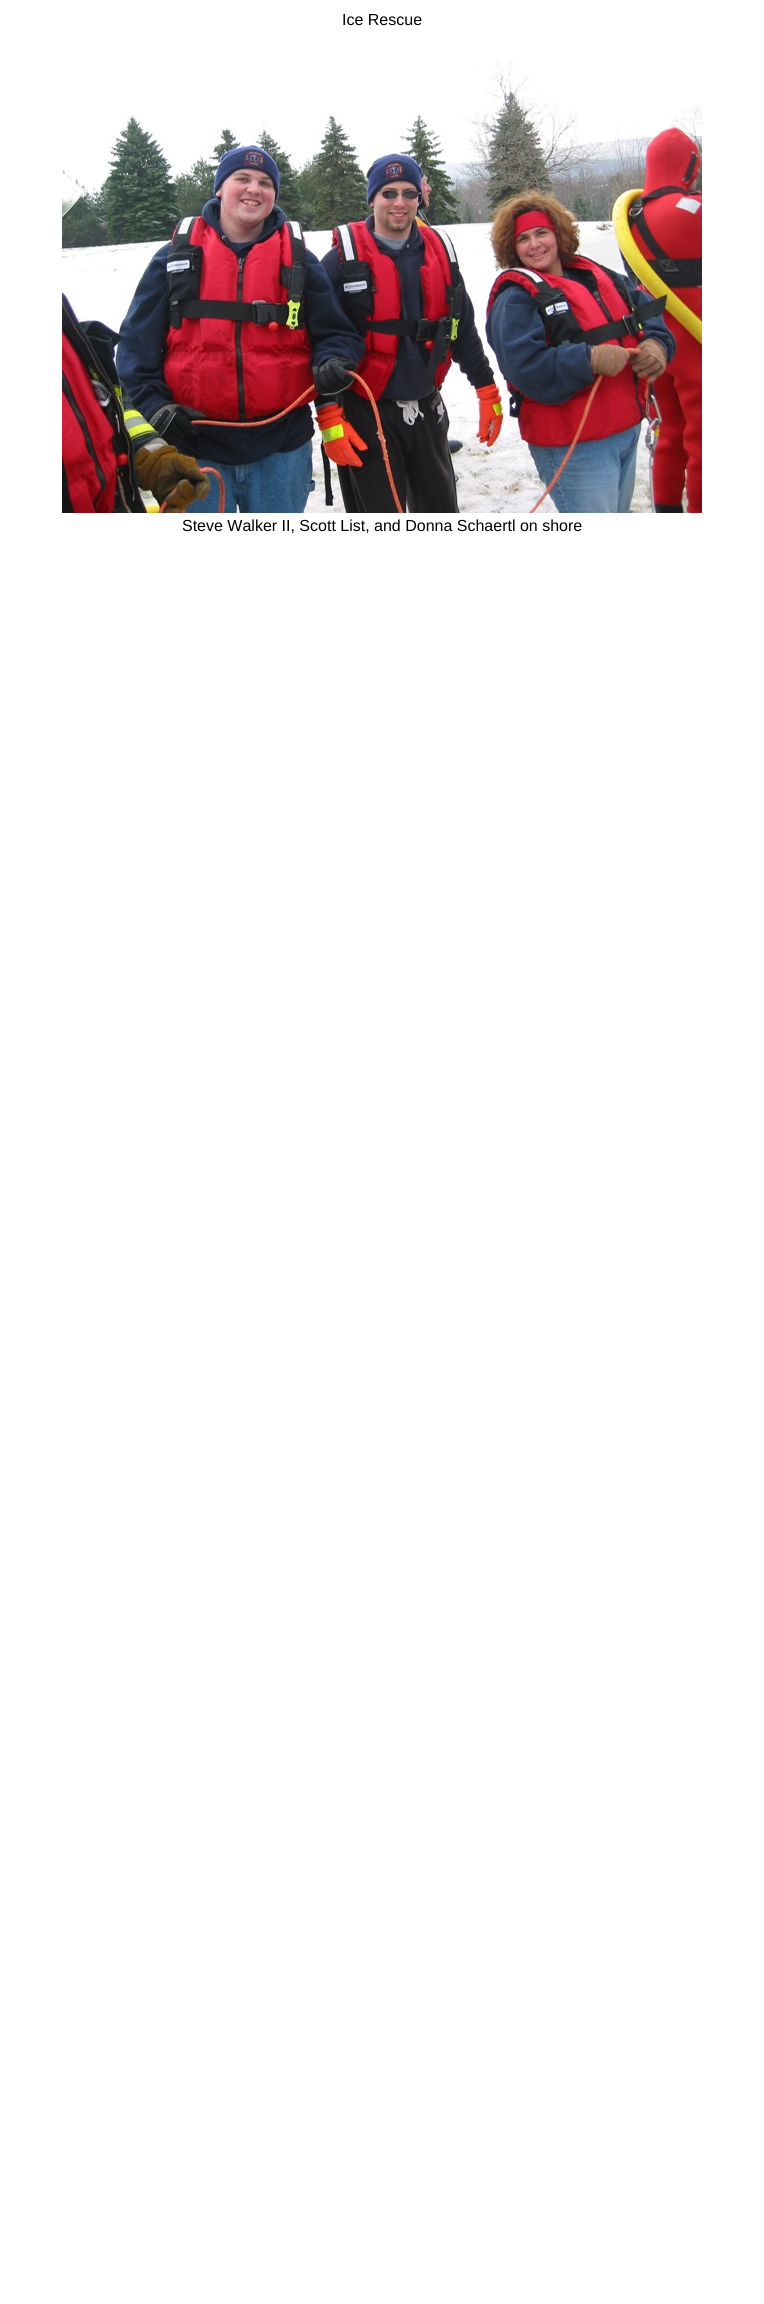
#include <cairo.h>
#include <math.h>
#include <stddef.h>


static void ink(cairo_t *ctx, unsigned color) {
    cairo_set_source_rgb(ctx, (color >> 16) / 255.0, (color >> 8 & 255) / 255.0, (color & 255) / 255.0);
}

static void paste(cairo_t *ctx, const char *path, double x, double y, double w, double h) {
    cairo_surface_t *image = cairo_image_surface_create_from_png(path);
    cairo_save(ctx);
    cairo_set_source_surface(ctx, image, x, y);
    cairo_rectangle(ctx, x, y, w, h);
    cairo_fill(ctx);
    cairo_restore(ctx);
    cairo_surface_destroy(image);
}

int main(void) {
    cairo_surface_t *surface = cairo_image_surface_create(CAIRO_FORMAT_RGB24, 764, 2304);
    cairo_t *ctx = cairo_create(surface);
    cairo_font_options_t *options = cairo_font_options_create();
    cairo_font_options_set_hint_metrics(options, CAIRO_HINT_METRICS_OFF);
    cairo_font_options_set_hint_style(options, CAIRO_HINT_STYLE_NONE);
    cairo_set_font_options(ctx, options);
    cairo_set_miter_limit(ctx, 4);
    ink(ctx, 0xFFFFFF);
    cairo_paint(ctx);
    cairo_select_font_face(ctx, "Liberation Sans", CAIRO_FONT_SLANT_NORMAL, CAIRO_FONT_WEIGHT_NORMAL);
    cairo_set_font_size(ctx, 16);
    ink(ctx, 0x000000);
    cairo_move_to(ctx, 342, 25);
    cairo_show_text(ctx, "Ice Rescue");
    paste(ctx, "media/1.png", 62, 58, 640, 455);
    cairo_move_to(ctx, 182, 531);
    cairo_show_text(ctx, "Steve Walker II, Scott List, and Donna Schaertl on shore");
    cairo_surface_write_to_png(surface, "image.png");
    cairo_font_options_destroy(options);
    cairo_destroy(ctx);
    cairo_surface_destroy(surface);
    return 0;
}
